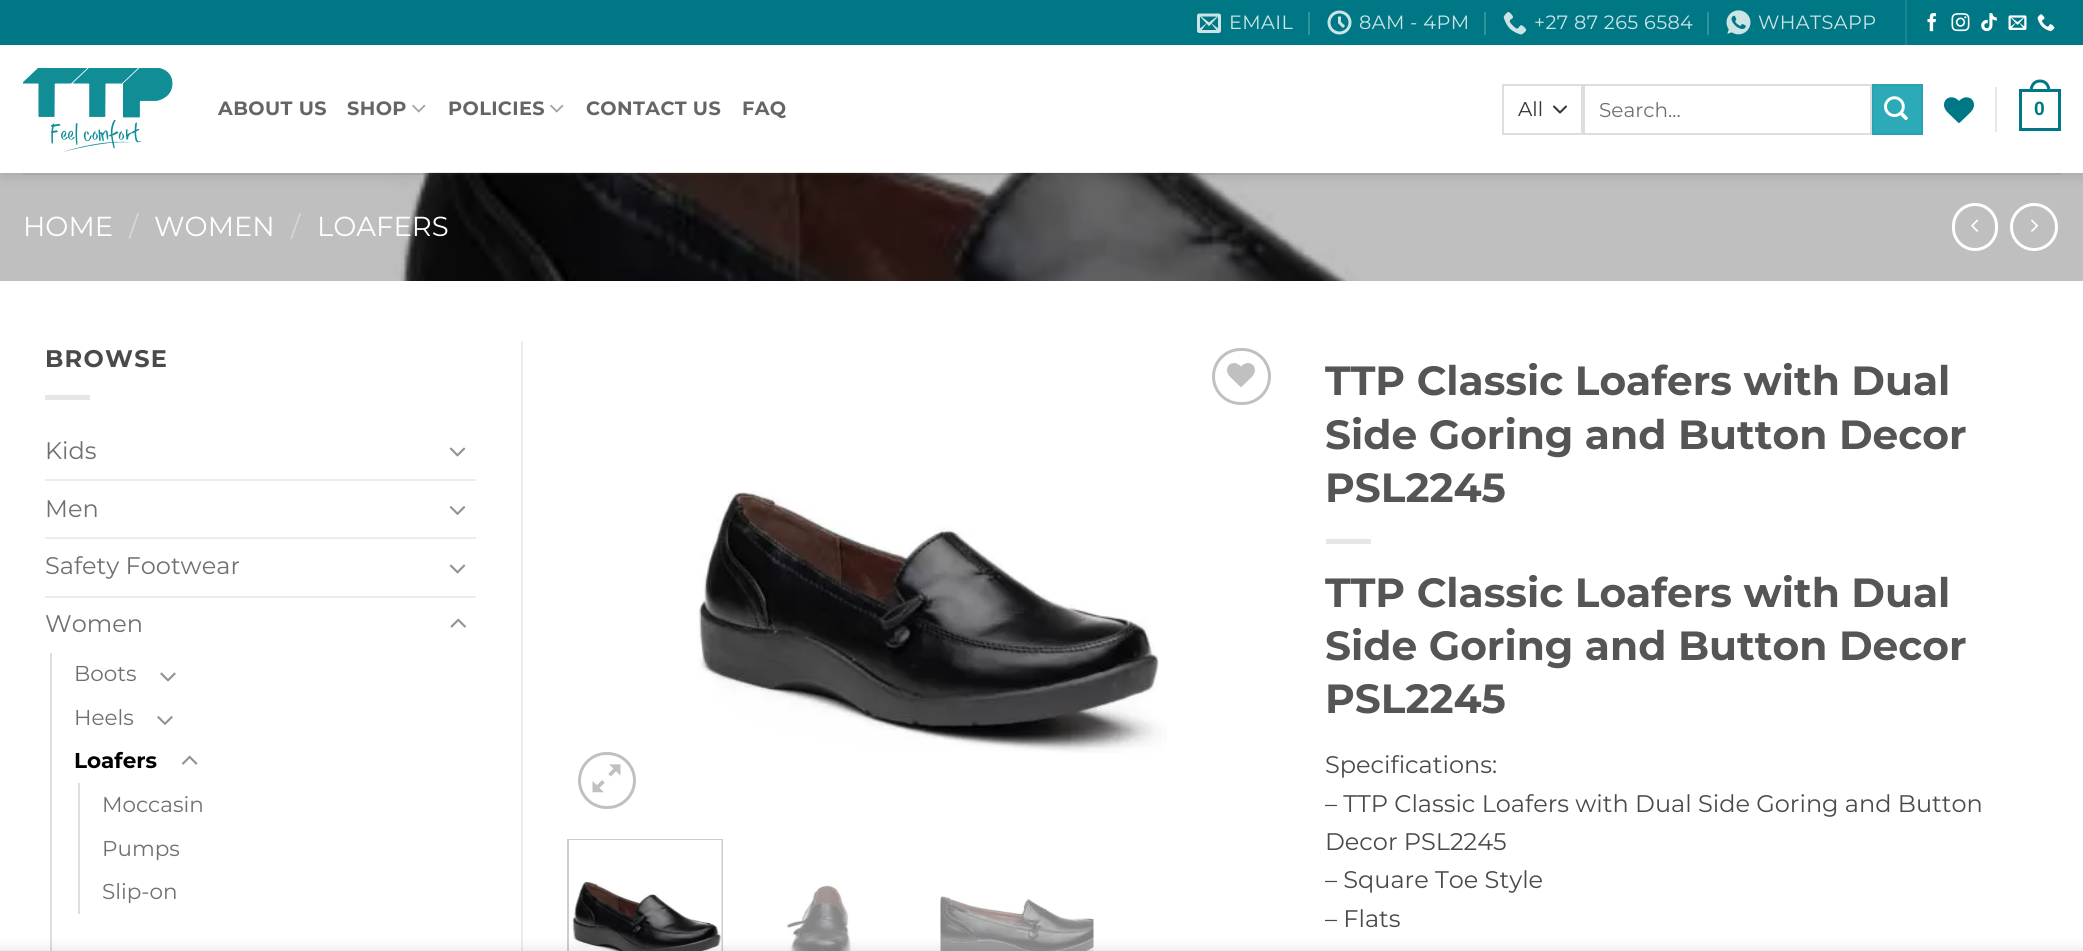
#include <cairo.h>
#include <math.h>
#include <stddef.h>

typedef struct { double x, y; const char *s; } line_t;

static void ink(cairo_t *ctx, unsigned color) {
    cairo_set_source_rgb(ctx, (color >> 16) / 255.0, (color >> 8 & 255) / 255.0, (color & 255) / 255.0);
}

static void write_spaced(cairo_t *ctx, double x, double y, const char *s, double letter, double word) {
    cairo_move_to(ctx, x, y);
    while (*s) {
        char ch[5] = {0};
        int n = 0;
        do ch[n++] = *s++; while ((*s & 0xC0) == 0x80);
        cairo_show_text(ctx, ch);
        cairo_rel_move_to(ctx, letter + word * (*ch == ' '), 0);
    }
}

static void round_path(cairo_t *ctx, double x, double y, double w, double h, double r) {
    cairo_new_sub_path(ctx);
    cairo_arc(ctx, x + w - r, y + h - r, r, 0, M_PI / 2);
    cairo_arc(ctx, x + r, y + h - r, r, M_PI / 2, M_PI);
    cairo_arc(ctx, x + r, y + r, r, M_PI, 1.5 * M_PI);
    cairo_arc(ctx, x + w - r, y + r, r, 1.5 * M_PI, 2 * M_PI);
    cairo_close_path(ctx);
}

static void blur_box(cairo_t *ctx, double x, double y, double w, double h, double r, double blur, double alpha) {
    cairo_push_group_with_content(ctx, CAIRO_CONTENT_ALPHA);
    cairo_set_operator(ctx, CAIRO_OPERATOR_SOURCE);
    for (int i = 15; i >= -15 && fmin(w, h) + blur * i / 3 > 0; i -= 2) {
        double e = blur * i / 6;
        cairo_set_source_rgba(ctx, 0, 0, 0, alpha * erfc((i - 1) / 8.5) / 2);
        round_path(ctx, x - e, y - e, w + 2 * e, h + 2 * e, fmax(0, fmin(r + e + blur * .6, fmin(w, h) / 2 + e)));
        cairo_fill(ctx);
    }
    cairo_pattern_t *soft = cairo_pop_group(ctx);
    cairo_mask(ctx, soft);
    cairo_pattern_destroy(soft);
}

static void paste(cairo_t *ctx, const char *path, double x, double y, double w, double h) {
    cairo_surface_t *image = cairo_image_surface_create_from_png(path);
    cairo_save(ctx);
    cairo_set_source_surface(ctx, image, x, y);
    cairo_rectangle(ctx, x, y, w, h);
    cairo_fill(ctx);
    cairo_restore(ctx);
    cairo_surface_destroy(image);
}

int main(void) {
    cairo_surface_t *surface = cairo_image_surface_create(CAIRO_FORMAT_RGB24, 2083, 951);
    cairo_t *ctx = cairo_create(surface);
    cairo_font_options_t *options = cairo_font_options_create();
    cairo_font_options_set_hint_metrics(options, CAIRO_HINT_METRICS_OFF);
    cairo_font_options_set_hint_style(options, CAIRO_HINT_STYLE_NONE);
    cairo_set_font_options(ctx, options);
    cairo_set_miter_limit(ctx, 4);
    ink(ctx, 0xFFFFFF);
    cairo_paint(ctx);
    paste(ctx, "media/14.png", 0, 172, 2083, 109);
    cairo_save(ctx);
    cairo_set_fill_rule(ctx, CAIRO_FILL_RULE_EVEN_ODD);
    cairo_new_path(ctx);
    cairo_move_to(ctx, 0, 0);
    cairo_line_to(ctx, 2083, 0);
    cairo_line_to(ctx, 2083, 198);
    cairo_line_to(ctx, 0, 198);
    cairo_close_path(ctx);
    cairo_move_to(ctx, 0, 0);
    cairo_line_to(ctx, 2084, 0);
    cairo_line_to(ctx, 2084, 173);
    cairo_line_to(ctx, 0, 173);
    cairo_close_path(ctx);
    cairo_clip(ctx);
    ink(ctx, 0x000000);
    blur_box(ctx, 2, 2, 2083, 172, 0, 7.5, 0.15);
    cairo_restore(ctx);
    ink(ctx, 0x007784);
    cairo_rectangle(ctx, 0, 0, 2083, 45);
    cairo_fill(ctx);
    paste(ctx, "media/1.png", 1197, 13, 24, 20);
    cairo_select_font_face(ctx, "Montserrat", CAIRO_FONT_SLANT_NORMAL, CAIRO_FONT_WEIGHT_NORMAL);
    cairo_set_font_size(ctx, 19.25);
    ink(ctx, 0xCCE4E6);
    write_spaced(ctx, 1229, 29, "EMAIL", 0.4, 0);
    ink(ctx, 0x33929D);
    cairo_rectangle(ctx, 1308, 12, 2, 23);
    cairo_fill(ctx);
    paste(ctx, "media/2.png", 1327, 10, 25, 25);
    ink(ctx, 0xCCE4E6);
    write_spaced(ctx, 1359, 29, "8AM - 4PM", 0.4, 0);
    ink(ctx, 0x33929D);
    cairo_rectangle(ctx, 1484, 12, 2, 23);
    cairo_fill(ctx);
    paste(ctx, "media/3.png", 1503, 12, 24, 23);
    ink(ctx, 0xCCE4E6);
    write_spaced(ctx, 1534, 29, "+27 87 265 6584", 0.4, 0);
    ink(ctx, 0x33929D);
    cairo_rectangle(ctx, 1707, 12, 2, 23);
    cairo_fill(ctx);
    paste(ctx, "media/4.png", 1726, 10, 25, 25);
    ink(ctx, 0xCCE4E6);
    write_spaced(ctx, 1758, 29, "WHATSAPP", 0.4, 0);
    ink(ctx, 0x1A8590);
    cairo_rectangle(ctx, 1905, 0, 2, 45);
    cairo_fill(ctx);
    paste(ctx, "media/5.png", 1927, 13, 9, 19);
    paste(ctx, "media/6.png", 1951, 13, 19, 19);
    paste(ctx, "media/7.png", 1981, 13, 16, 19);
    paste(ctx, "media/8.png", 2008, 15, 19, 15);
    paste(ctx, "media/9.png", 2037, 14, 18, 18);
    paste(ctx, "media/10.png", 23, 68, 150, 84);
    cairo_select_font_face(ctx, "Montserrat", CAIRO_FONT_SLANT_NORMAL, CAIRO_FONT_WEIGHT_BOLD);
    ink(ctx, 0x656565);
    write_spaced(ctx, 218, 115, "ABOUT US", 0.4, 0);
    write_spaced(ctx, 347, 115, "SHOP", 0.4, 0);
    paste(ctx, "media/11.png", 412, 104, 14, 9);
    write_spaced(ctx, 448, 115, "POLICIES", 0.4, 0);
    paste(ctx, "media/11.png", 550, 104, 14, 9);
    write_spaced(ctx, 586, 115, "CONTACT US", 0.4, 0);
    write_spaced(ctx, 742, 115, "FAQ", 0.4, 0);
    cairo_new_path(ctx);
    cairo_move_to(ctx, 1554, 106.5);
    cairo_line_to(ctx, 1560, 112.5);
    cairo_line_to(ctx, 1566, 106.5);
    ink(ctx, 0x333333);
    cairo_set_line_cap(ctx, CAIRO_LINE_CAP_ROUND);
    cairo_set_line_join(ctx, CAIRO_LINE_JOIN_ROUND);
    cairo_stroke(ctx);
    cairo_rectangle(ctx, 1503, 85, 79, 49);
    ink(ctx, 0xDDDDDD);
    cairo_set_line_cap(ctx, CAIRO_LINE_CAP_BUTT);
    cairo_set_line_join(ctx, CAIRO_LINE_JOIN_MITER);
    cairo_stroke(ctx);
    cairo_select_font_face(ctx, "Montserrat", CAIRO_FONT_SLANT_NORMAL, CAIRO_FONT_WEIGHT_NORMAL);
    cairo_set_font_size(ctx, 20);
    ink(ctx, 0x333333);
    cairo_move_to(ctx, 1518, 116);
    cairo_show_text(ctx, "All");
    cairo_rectangle(ctx, 1584, 85, 287, 49);
    ink(ctx, 0xDDDDDD);
    cairo_stroke(ctx);
    ink(ctx, 0x707070);
    cairo_move_to(ctx, 1599, 117);
    cairo_show_text(ctx, "Search...");
    ink(ctx, 0x2CAAB8);
    cairo_rectangle(ctx, 1873, 85, 49, 49);
    cairo_fill_preserve(ctx);
    ink(ctx, 0x2AA2AF);
    cairo_stroke(ctx);
    paste(ctx, "media/12.png", 1884, 96, 24, 24);
    paste(ctx, "media/13.png", 1944, 97, 30, 26);
    ink(ctx, 0xE6E6E6);
    cairo_rectangle(ctx, 1995, 87, 2, 45);
    cairo_fill(ctx);
    cairo_rectangle(ctx, 2020.5, 90.5, 39, 39);
    ink(ctx, 0x007784);
    cairo_set_line_width(ctx, 3);
    cairo_stroke(ctx);
    cairo_set_fill_rule(ctx, CAIRO_FILL_RULE_EVEN_ODD);
    cairo_new_path(ctx);
    cairo_move_to(ctx, 2040, 79.5);
    cairo_curve_to(ctx, 2047, 79.5, 2050.5, 85, 2050.5, 91.5);
    cairo_line_to(ctx, 2029.5, 91.5);
    cairo_curve_to(ctx, 2029.5, 85, 2033, 79.5, 2040, 79.5);
    cairo_close_path(ctx);
    cairo_move_to(ctx, 2040, 82.5);
    cairo_curve_to(ctx, 2045.5, 82.5, 2047.5, 87, 2047.5, 91.5);
    cairo_line_to(ctx, 2032.5, 91.5);
    cairo_curve_to(ctx, 2032.5, 87, 2034.5, 82.5, 2040, 82.5);
    cairo_close_path(ctx);
    cairo_fill(ctx);
    cairo_select_font_face(ctx, "Liberation Sans", CAIRO_FONT_SLANT_NORMAL, CAIRO_FONT_WEIGHT_BOLD);
    cairo_set_font_size(ctx, 19.25);
    write_spaced(ctx, 2034, 115, "0", 0.4, 0);
    cairo_set_source_rgba(ctx, 0.29, 0.29, 0.29, 0.1);
    cairo_rectangle(ctx, 23, 173, 2038, 2);
    cairo_fill(ctx);
    cairo_set_source_rgba(ctx, 1, 1, 1, 0.9);
    cairo_rectangle(ctx, 0, 172, 2083, 1);
    cairo_fill(ctx);
    cairo_select_font_face(ctx, "Montserrat", CAIRO_FONT_SLANT_NORMAL, CAIRO_FONT_WEIGHT_NORMAL);
    cairo_set_font_size(ctx, 27.5);
    ink(ctx, 0xFFFFFF);
    cairo_move_to(ctx, 23, 236);
    cairo_show_text(ctx, "HOME");
    ink(ctx, 0xD6D6D6);
    cairo_move_to(ctx, 129, 236);
    cairo_show_text(ctx, "/");
    ink(ctx, 0xFFFFFF);
    cairo_move_to(ctx, 154, 236);
    cairo_show_text(ctx, "WOMEN");
    ink(ctx, 0xD6D6D6);
    cairo_move_to(ctx, 291, 236);
    cairo_show_text(ctx, "/");
    ink(ctx, 0xFFFFFF);
    cairo_move_to(ctx, 317, 236);
    cairo_show_text(ctx, "LOAFERS");
    round_path(ctx, 1953.5, 204.5, 43, 45, 21.5);
    cairo_stroke(ctx);
    paste(ctx, "media/15.png", 1971, 219, 8, 13);
    cairo_arc(ctx, 2034, 227, 22.5, 0, 2 * M_PI);
    cairo_stroke(ctx);
    paste(ctx, "media/16.png", 2031, 219, 8, 13);
    cairo_select_font_face(ctx, "Montserrat", CAIRO_FONT_SLANT_NORMAL, CAIRO_FONT_WEIGHT_BOLD);
    cairo_set_font_size(ctx, 24);
    ink(ctx, 0x4A4A4A);
    write_spaced(ctx, 45, 367, "BROWSE", 1.25, 0);
    ink(ctx, 0xE6E6E6);
    cairo_rectangle(ctx, 45, 395, 45, 5);
    cairo_fill(ctx);
    cairo_select_font_face(ctx, "Montserrat", CAIRO_FONT_SLANT_NORMAL, CAIRO_FONT_WEIGHT_NORMAL);
    ink(ctx, 0x707070);
    cairo_move_to(ctx, 45, 459);
    cairo_show_text(ctx, "Kids");
    paste(ctx, "media/17.png", 449, 447, 17, 10);
    ink(ctx, 0xECECEC);
    cairo_rectangle(ctx, 45, 479, 431, 2);
    cairo_fill(ctx);
    ink(ctx, 0x707070);
    cairo_move_to(ctx, 45, 517);
    cairo_show_text(ctx, "Men");
    paste(ctx, "media/18.png", 449, 506, 17, 9);
    ink(ctx, 0xECECEC);
    cairo_rectangle(ctx, 45, 537, 431, 2);
    cairo_fill(ctx);
    ink(ctx, 0x707070);
    cairo_move_to(ctx, 45, 574);
    cairo_show_text(ctx, "Safety Footwear");
    paste(ctx, "media/17.png", 449, 564, 17, 10);
    ink(ctx, 0xECECEC);
    cairo_rectangle(ctx, 45, 596, 431, 2);
    cairo_fill(ctx);
    ink(ctx, 0x707070);
    cairo_move_to(ctx, 45, 632);
    cairo_show_text(ctx, "Women");
    paste(ctx, "media/19.png", 450, 618, 16, 10);
    ink(ctx, 0xDDDDDD);
    cairo_rectangle(ctx, 50, 653, 2, 298);
    cairo_fill(ctx);
    cairo_set_font_size(ctx, 21.5);
    ink(ctx, 0x707070);
    cairo_move_to(ctx, 74, 681);
    cairo_show_text(ctx, "Boots");
    paste(ctx, "media/20.png", 160, 672, 16, 10);
    cairo_move_to(ctx, 74, 725);
    cairo_show_text(ctx, "Heels");
    paste(ctx, "media/21.png", 157, 716, 16, 9);
    cairo_select_font_face(ctx, "Montserrat", CAIRO_FONT_SLANT_NORMAL, CAIRO_FONT_WEIGHT_BOLD);
    ink(ctx, 0x000000);
    cairo_move_to(ctx, 74, 768);
    cairo_show_text(ctx, "Loafers");
    paste(ctx, "media/22.png", 181, 755, 17, 10);
    ink(ctx, 0xDDDDDD);
    cairo_rectangle(ctx, 78, 783, 2, 131);
    cairo_fill(ctx);
    cairo_select_font_face(ctx, "Montserrat", CAIRO_FONT_SLANT_NORMAL, CAIRO_FONT_WEIGHT_NORMAL);
    ink(ctx, 0x707070);
    {
        static const line_t items[] = {
            {102, 812, "Moccasin"},
            {102, 856, "Pumps"},
            {102, 899, "Slip-on"},
        };
        for (size_t i = 0; i < sizeof items / sizeof *items; i++) {
            cairo_move_to(ctx, items[i].x, items[i].y);
            cairo_show_text(ctx, items[i].s);
        }
    }
    ink(ctx, 0xECECEC);
    cairo_rectangle(ctx, 521, 341, 2, 610);
    cairo_fill(ctx);
    round_path(ctx, 1213.5, 349.5, 56, 54, 27);
    ink(ctx, 0xC0C0C0);
    cairo_stroke(ctx);
    paste(ctx, "media/23.png", 1227, 363, 28, 24);
    paste(ctx, "media/24.png", 697, 491, 470, 262);
    round_path(ctx, 579.5, 753.5, 55, 54, 27);
    cairo_stroke(ctx);
    paste(ctx, "media/25.png", 592, 764, 29, 29);
    cairo_rectangle(ctx, 568, 840, 154, 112);
    ink(ctx, 0xCCCCCC);
    cairo_set_line_width(ctx, 2);
    cairo_stroke(ctx);
    paste(ctx, "media/26.png", 569, 840, 153, 111);
    paste(ctx, "media/27.png", 786, 885, 65, 66);
    paste(ctx, "media/28.png", 940, 896, 154, 55);
    cairo_select_font_face(ctx, "Montserrat", CAIRO_FONT_SLANT_NORMAL, CAIRO_FONT_WEIGHT_BOLD);
    cairo_set_font_size(ctx, 40.75);
    ink(ctx, 0x555555);
    {
        static const line_t items[] = {
            {1325, 395, "TTP Classic Loafers with Dual"},
            {1325, 449, "Side Goring and Button Decor"},
            {1325, 502, "PSL2245"},
        };
        for (size_t i = 0; i < sizeof items / sizeof *items; i++) {
            cairo_move_to(ctx, items[i].x, items[i].y);
            cairo_show_text(ctx, items[i].s);
        }
    }
    ink(ctx, 0xE6E6E6);
    cairo_rectangle(ctx, 1326, 539, 45, 5);
    cairo_fill(ctx);
    ink(ctx, 0x555555);
    {
        static const line_t items[] = {
            {1325, 607, "TTP Classic Loafers with Dual"},
            {1325, 660, "Side Goring and Button Decor"},
            {1325, 713, "PSL2245"},
        };
        for (size_t i = 0; i < sizeof items / sizeof *items; i++) {
            cairo_move_to(ctx, items[i].x, items[i].y);
            cairo_show_text(ctx, items[i].s);
        }
    }
    cairo_select_font_face(ctx, "Montserrat", CAIRO_FONT_SLANT_NORMAL, CAIRO_FONT_WEIGHT_NORMAL);
    cairo_set_font_size(ctx, 24);
    ink(ctx, 0x4A4A4A);
    {
        static const line_t items[] = {
            {1325, 773, "Specifications:"},
            {1325, 812, "– TTP Classic Loafers with Dual Side Goring and Button"},
            {1325, 850, "Decor PSL2245"},
            {1325, 888, "– Square Toe Style"},
            {1325, 927, "– Flats"},
        };
        for (size_t i = 0; i < sizeof items / sizeof *items; i++) {
            cairo_move_to(ctx, items[i].x, items[i].y);
            cairo_show_text(ctx, items[i].s);
        }
    }
    ink(ctx, 0x000000);
    blur_box(ctx, 0, 951, 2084, 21, 0, 7, 0.14);
    cairo_surface_write_to_png(surface, "image.png");
    cairo_font_options_destroy(options);
    cairo_destroy(ctx);
    cairo_surface_destroy(surface);
    return 0;
}
